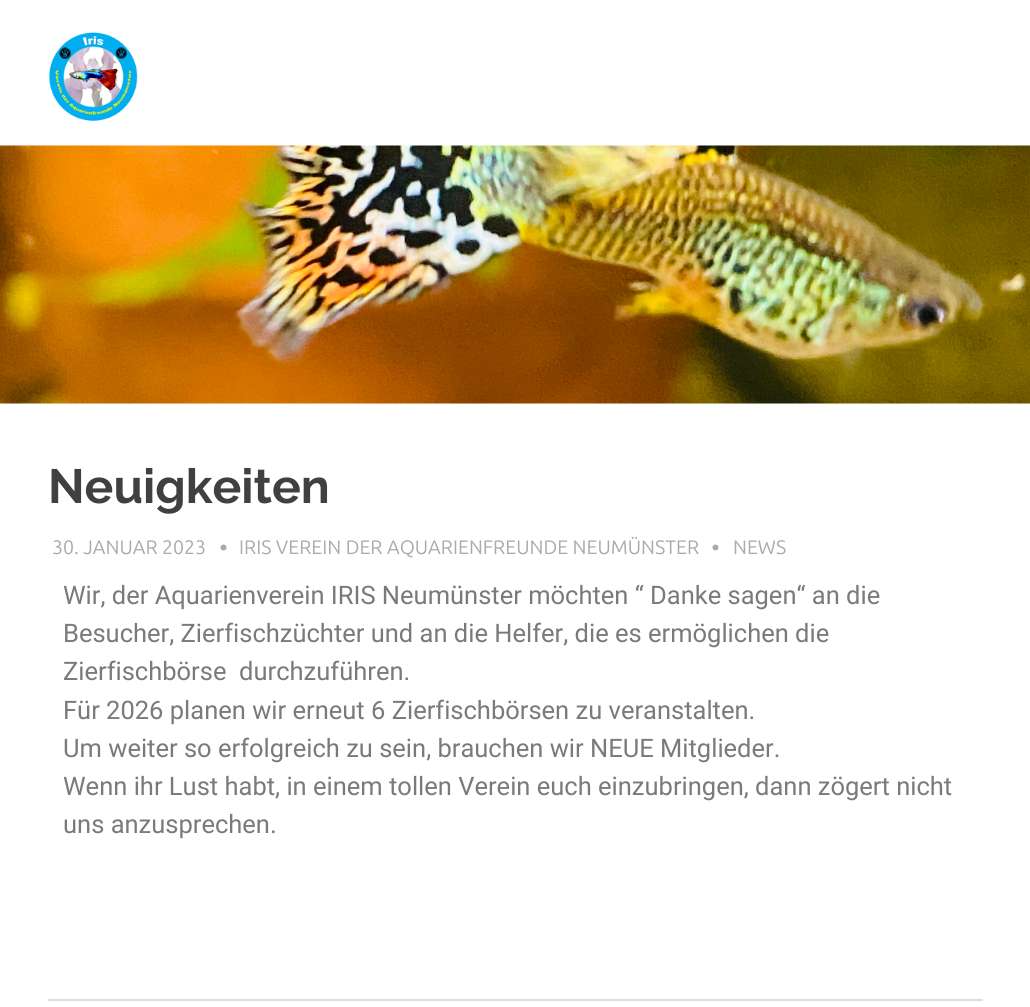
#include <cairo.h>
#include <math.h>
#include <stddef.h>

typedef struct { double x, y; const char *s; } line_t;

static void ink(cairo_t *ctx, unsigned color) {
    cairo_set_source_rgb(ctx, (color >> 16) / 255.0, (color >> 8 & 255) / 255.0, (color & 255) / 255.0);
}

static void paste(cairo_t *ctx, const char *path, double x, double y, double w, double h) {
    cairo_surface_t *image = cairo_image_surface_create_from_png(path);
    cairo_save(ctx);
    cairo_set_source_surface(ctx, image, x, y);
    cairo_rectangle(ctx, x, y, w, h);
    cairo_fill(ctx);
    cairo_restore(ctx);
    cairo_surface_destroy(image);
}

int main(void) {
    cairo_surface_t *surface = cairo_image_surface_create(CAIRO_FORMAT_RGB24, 1030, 1007);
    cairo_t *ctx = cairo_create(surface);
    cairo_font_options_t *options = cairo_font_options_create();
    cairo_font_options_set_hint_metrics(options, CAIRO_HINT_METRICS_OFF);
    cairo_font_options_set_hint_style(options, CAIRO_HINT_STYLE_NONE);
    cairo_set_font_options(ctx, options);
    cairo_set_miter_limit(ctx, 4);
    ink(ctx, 0xFFFFFF);
    cairo_paint(ctx);
    paste(ctx, "media/1.png", 48, 32, 90, 89);
    paste(ctx, "media/2.png", 0, 145, 1030, 259);
    cairo_select_font_face(ctx, "Raleway", CAIRO_FONT_SLANT_NORMAL, CAIRO_FONT_WEIGHT_BOLD);
    cairo_set_font_size(ctx, 48);
    ink(ctx, 0x404040);
    cairo_move_to(ctx, 48, 503);
    cairo_show_text(ctx, "Neuigkeiten");
    cairo_select_font_face(ctx, "Ubuntu", CAIRO_FONT_SLANT_NORMAL, CAIRO_FONT_WEIGHT_NORMAL);
    cairo_set_font_size(ctx, 19.5);
    ink(ctx, 0xAAAAAA);
    cairo_move_to(ctx, 52, 554);
    cairo_show_text(ctx, "30. JANUAR 2023");
    paste(ctx, "media/3.png", 220, 544, 7, 7);
    cairo_move_to(ctx, 239, 554);
    cairo_show_text(ctx, "IRIS VEREIN DER AQUARIENFREUNDE NEUMÜNSTER");
    paste(ctx, "media/3.png", 712, 544, 7, 7);
    cairo_move_to(ctx, 733, 554);
    cairo_show_text(ctx, "NEWS");
    cairo_select_font_face(ctx, "Roboto", CAIRO_FONT_SLANT_NORMAL, CAIRO_FONT_WEIGHT_NORMAL);
    cairo_set_font_size(ctx, 25.5);
    ink(ctx, 0x7A7A7A);
    {
        static const line_t items[] = {
            {63, 604, "Wir, der Aquarienverein IRIS Neumünster möchten “ Danke sagen“ an die"},
            {63, 642, "Besucher, Zierfischzüchter und an die Helfer, die es ermöglichen die"},
            {63, 680, "Zierfischbörse  durchzuführen."},
            {63, 719, "Für 2026 planen wir erneut 6 Zierfischbörsen zu veranstalten."},
            {63, 757, "Um weiter so erfolgreich zu sein, brauchen wir NEUE Mitglieder."},
            {63, 795, "Wenn ihr Lust habt, in einem tollen Verein euch einzubringen, dann zögert nicht"},
            {63, 833, "uns anzusprechen."},
        };
        for (size_t i = 0; i < sizeof items / sizeof *items; i++) {
            cairo_move_to(ctx, items[i].x, items[i].y);
            cairo_show_text(ctx, items[i].s);
        }
    }
    ink(ctx, 0xDDDDDD);
    cairo_rectangle(ctx, 48, 999, 935, 2);
    cairo_fill(ctx);
    cairo_surface_write_to_png(surface, "image.png");
    cairo_font_options_destroy(options);
    cairo_destroy(ctx);
    cairo_surface_destroy(surface);
    return 0;
}
